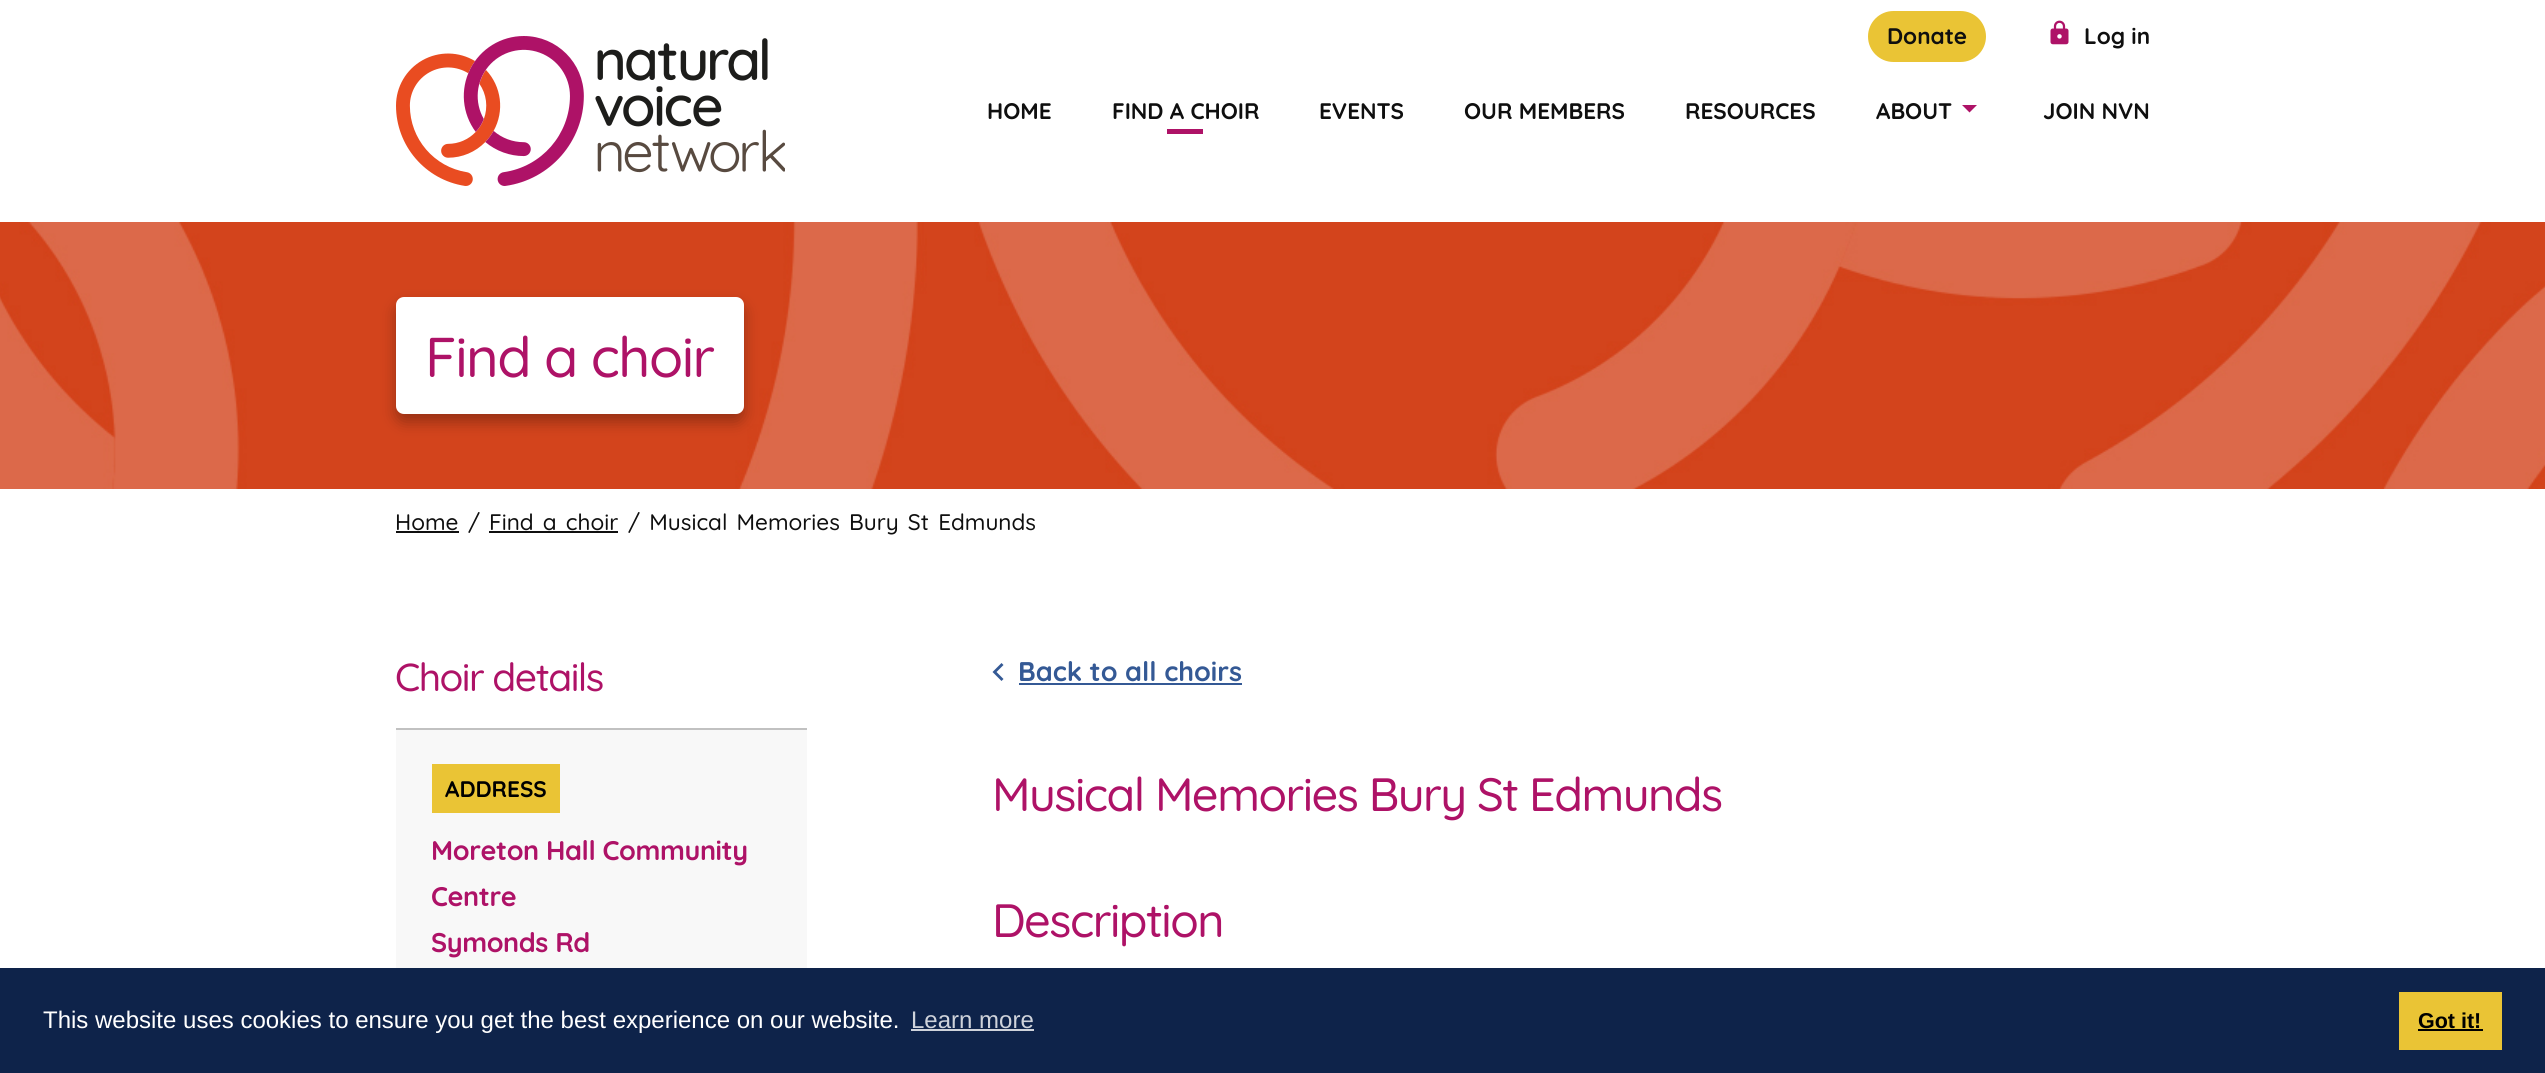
#include <cairo.h>
#include <math.h>
#include <stddef.h>

typedef struct { double x, y; const char *s; } line_t;
typedef struct { double x, y, w, h; unsigned color; } box_t;

static void ink(cairo_t *ctx, unsigned color) {
    cairo_set_source_rgb(ctx, (color >> 16) / 255.0, (color >> 8 & 255) / 255.0, (color & 255) / 255.0);
}

static void write_spaced(cairo_t *ctx, double x, double y, const char *s, double letter, double word) {
    cairo_move_to(ctx, x, y);
    while (*s) {
        char ch[5] = {0};
        int n = 0;
        do ch[n++] = *s++; while ((*s & 0xC0) == 0x80);
        cairo_show_text(ctx, ch);
        cairo_rel_move_to(ctx, letter + word * (*ch == ' '), 0);
    }
}

static void round_path(cairo_t *ctx, double x, double y, double w, double h, double r) {
    cairo_new_sub_path(ctx);
    cairo_arc(ctx, x + w - r, y + h - r, r, 0, M_PI / 2);
    cairo_arc(ctx, x + r, y + h - r, r, M_PI / 2, M_PI);
    cairo_arc(ctx, x + r, y + r, r, M_PI, 1.5 * M_PI);
    cairo_arc(ctx, x + w - r, y + r, r, 1.5 * M_PI, 2 * M_PI);
    cairo_close_path(ctx);
}

static void blur_box(cairo_t *ctx, double x, double y, double w, double h, double r, double blur, double alpha) {
    cairo_push_group_with_content(ctx, CAIRO_CONTENT_ALPHA);
    cairo_set_operator(ctx, CAIRO_OPERATOR_SOURCE);
    for (int i = 15; i >= -15 && fmin(w, h) + blur * i / 3 > 0; i -= 2) {
        double e = blur * i / 6;
        cairo_set_source_rgba(ctx, 0, 0, 0, alpha * erfc((i - 1) / 8.5) / 2);
        round_path(ctx, x - e, y - e, w + 2 * e, h + 2 * e, fmax(0, fmin(r + e + blur * .6, fmin(w, h) / 2 + e)));
        cairo_fill(ctx);
    }
    cairo_pattern_t *soft = cairo_pop_group(ctx);
    cairo_mask(ctx, soft);
    cairo_pattern_destroy(soft);
}

static void paste(cairo_t *ctx, const char *path, double x, double y, double w, double h) {
    cairo_surface_t *image = cairo_image_surface_create_from_png(path);
    cairo_save(ctx);
    cairo_set_source_surface(ctx, image, x, y);
    cairo_rectangle(ctx, x, y, w, h);
    cairo_fill(ctx);
    cairo_restore(ctx);
    cairo_surface_destroy(image);
}

int main(void) {
    cairo_surface_t *surface = cairo_image_surface_create(CAIRO_FORMAT_RGB24, 2545, 1073);
    cairo_t *ctx = cairo_create(surface);
    cairo_font_options_t *options = cairo_font_options_create();
    cairo_font_options_set_hint_metrics(options, CAIRO_HINT_METRICS_OFF);
    cairo_font_options_set_hint_style(options, CAIRO_HINT_STYLE_NONE);
    cairo_set_font_options(ctx, options);
    cairo_set_miter_limit(ctx, 4);
    ink(ctx, 0xFFFFFF);
    cairo_paint(ctx);
    paste(ctx, "media/1.png", 396, 36, 389, 150);
    ink(ctx, 0xEAC435);
    round_path(ctx, 1869, 12, 116, 49, 24.5);
    cairo_fill_preserve(ctx);
    cairo_stroke(ctx);
    cairo_select_font_face(ctx, "Quicksand", CAIRO_FONT_SLANT_NORMAL, CAIRO_FONT_WEIGHT_BOLD);
    cairo_set_font_size(ctx, 22.5);
    ink(ctx, 0x0F0F0F);
    cairo_move_to(ctx, 1887, 44);
    cairo_show_text(ctx, "Donate");
    paste(ctx, "media/2.png", 2050, 20, 19, 25);
    {
        static const line_t items[] = {
            {2084, 44, "Log in"},
            {987, 119, "HOME"},
            {1112, 119, "FIND A CHOIR"},
        };
        for (size_t i = 0; i < sizeof items / sizeof *items; i++) {
            cairo_move_to(ctx, items[i].x, items[i].y);
            cairo_show_text(ctx, items[i].s);
        }
    }
    ink(ctx, 0xAE1267);
    cairo_rectangle(ctx, 1167, 129, 36, 5);
    cairo_fill(ctx);
    ink(ctx, 0x0F0F0F);
    {
        static const line_t items[] = {
            {1319, 119, "EVENTS"},
            {1464, 119, "OUR MEMBERS"},
            {1685, 119, "RESOURCES"},
            {1876, 119, "ABOUT"},
        };
        for (size_t i = 0; i < sizeof items / sizeof *items; i++) {
            cairo_move_to(ctx, items[i].x, items[i].y);
            cairo_show_text(ctx, items[i].s);
        }
    }
    ink(ctx, 0xAE1267);
    cairo_new_path(ctx);
    cairo_move_to(ctx, 1962, 105);
    cairo_line_to(ctx, 1969.5, 112.5);
    cairo_line_to(ctx, 1977, 105);
    cairo_close_path(ctx);
    cairo_fill(ctx);
    ink(ctx, 0x0F0F0F);
    cairo_move_to(ctx, 2043, 119);
    cairo_show_text(ctx, "JOIN NVN");
    paste(ctx, "media/3.png", 0, 222, 2545, 267);
    ink(ctx, 0x000000);
    blur_box(ctx, 396, 305, 348, 117, 8, 7.5, 0.29);
    ink(ctx, 0xFFFFFF);
    round_path(ctx, 396, 297, 348, 117, 8);
    cairo_fill(ctx);
    cairo_select_font_face(ctx, "Quicksand Medium", CAIRO_FONT_SLANT_NORMAL, CAIRO_FONT_WEIGHT_NORMAL);
    cairo_set_font_size(ctx, 56);
    ink(ctx, 0xAE1267);
    write_spaced(ctx, 425, 377, "Find a choir", -1.5, 0);
    cairo_set_font_size(ctx, 22.5);
    ink(ctx, 0x0F0F0F);
    cairo_move_to(ctx, 395, 530);
    cairo_show_text(ctx, "Home");
    cairo_rectangle(ctx, 396, 531, 63, 2);
    cairo_fill(ctx);
    cairo_move_to(ctx, 468, 530);
    cairo_show_text(ctx, "/");
    write_spaced(ctx, 489, 530, "Find a choir", 0, 3);
    cairo_rectangle(ctx, 489, 531, 129, 2);
    cairo_fill(ctx);
    write_spaced(ctx, 628, 530, "/ Musical Memories Bury St Edmunds", 0, 3);
    cairo_set_font_size(ctx, 39);
    ink(ctx, 0xAE1267);
    write_spaced(ctx, 395, 691, "Choir details", -1.5, 0);
    {
        static const box_t items[] = {
            {396, 730, 411, 238, 0xF8F8F8},
            {396, 728, 411, 2, 0xC1C1C1},
            {432, 764, 128, 49, 0xEAC435},
        };
        for (size_t i = 0; i < sizeof items / sizeof *items; i++) {
            ink(ctx, items[i].color);
            cairo_rectangle(ctx, items[i].x, items[i].y, items[i].w, items[i].h);
            cairo_fill(ctx);
        }
    }
    cairo_select_font_face(ctx, "Quicksand", CAIRO_FONT_SLANT_NORMAL, CAIRO_FONT_WEIGHT_BOLD);
    cairo_set_font_size(ctx, 22.5);
    ink(ctx, 0x000000);
    cairo_move_to(ctx, 445, 797);
    cairo_show_text(ctx, "ADDRESS");
    cairo_set_font_size(ctx, 27);
    ink(ctx, 0xAE1267);
    {
        static const line_t items[] = {
            {431, 860, "Moreton Hall Community"},
            {431, 906, "Centre"},
            {431, 952, "Symonds Rd"},
        };
        for (size_t i = 0; i < sizeof items / sizeof *items; i++) {
            write_spaced(ctx, items[i].x, items[i].y, items[i].s, -0.4, 0);
        }
    }
    ink(ctx, 0x345995);
    cairo_new_path(ctx);
    cairo_move_to(ctx, 1003.5, 665);
    cairo_line_to(ctx, 996.5, 672);
    cairo_line_to(ctx, 1003.5, 679);
    cairo_line_to(ctx, 1001.5, 681);
    cairo_line_to(ctx, 992.5, 672);
    cairo_line_to(ctx, 1001.5, 663);
    cairo_close_path(ctx);
    cairo_fill(ctx);
    cairo_move_to(ctx, 1018, 681);
    cairo_show_text(ctx, "Back to all choirs");
    cairo_rectangle(ctx, 1019, 683, 223, 2);
    cairo_fill(ctx);
    cairo_select_font_face(ctx, "Quicksand Medium", CAIRO_FONT_SLANT_NORMAL, CAIRO_FONT_WEIGHT_NORMAL);
    cairo_set_font_size(ctx, 46.7);
    ink(ctx, 0xAE1267);
    write_spaced(ctx, 992, 811, "Musical Memories Bury St Edmunds", -1.5, 0);
    write_spaced(ctx, 992, 937, "Description", -1.5, 0);
    ink(ctx, 0x0E234A);
    cairo_rectangle(ctx, 0, 968, 2545, 105);
    cairo_fill(ctx);
    cairo_select_font_face(ctx, "Liberation Sans", CAIRO_FONT_SLANT_NORMAL, CAIRO_FONT_WEIGHT_NORMAL);
    cairo_set_font_size(ctx, 24);
    ink(ctx, 0xFFFFFF);
    cairo_move_to(ctx, 43, 1028);
    cairo_show_text(ctx, "This website uses cookies to ensure you get the best experience on our website.");
    ink(ctx, 0xCFD3DB);
    cairo_move_to(ctx, 911, 1028);
    cairo_show_text(ctx, "Learn more");
    cairo_rectangle(ctx, 911, 1029, 123, 2);
    cairo_fill(ctx);
    ink(ctx, 0xEAC435);
    cairo_rectangle(ctx, 2399, 992, 103, 58);
    cairo_fill(ctx);
    cairo_select_font_face(ctx, "Liberation Sans", CAIRO_FONT_SLANT_NORMAL, CAIRO_FONT_WEIGHT_BOLD);
    cairo_set_font_size(ctx, 21.5);
    ink(ctx, 0x000000);
    cairo_move_to(ctx, 2418, 1028);
    cairo_show_text(ctx, "Got it!");
    cairo_rectangle(ctx, 2418, 1029, 65, 2);
    cairo_fill(ctx);
    cairo_surface_write_to_png(surface, "image.png");
    cairo_font_options_destroy(options);
    cairo_destroy(ctx);
    cairo_surface_destroy(surface);
    return 0;
}
